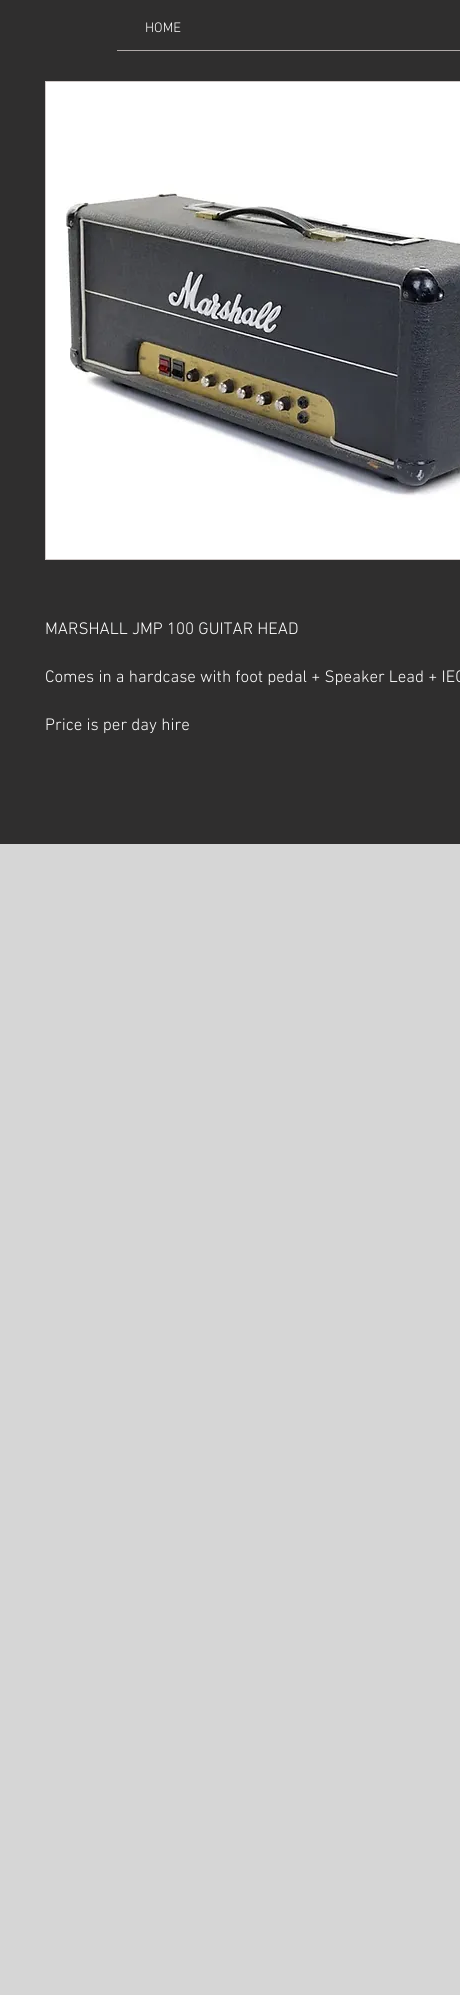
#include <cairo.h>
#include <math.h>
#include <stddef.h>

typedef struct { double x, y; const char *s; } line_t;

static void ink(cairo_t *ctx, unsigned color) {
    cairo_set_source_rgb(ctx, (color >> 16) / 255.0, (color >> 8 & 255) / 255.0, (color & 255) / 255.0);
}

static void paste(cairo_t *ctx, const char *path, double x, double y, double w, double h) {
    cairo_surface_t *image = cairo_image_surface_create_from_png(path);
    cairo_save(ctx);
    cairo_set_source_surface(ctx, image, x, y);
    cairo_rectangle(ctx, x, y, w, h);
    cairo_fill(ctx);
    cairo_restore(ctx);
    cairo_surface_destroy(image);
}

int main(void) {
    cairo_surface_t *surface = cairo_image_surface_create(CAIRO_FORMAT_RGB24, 460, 1995);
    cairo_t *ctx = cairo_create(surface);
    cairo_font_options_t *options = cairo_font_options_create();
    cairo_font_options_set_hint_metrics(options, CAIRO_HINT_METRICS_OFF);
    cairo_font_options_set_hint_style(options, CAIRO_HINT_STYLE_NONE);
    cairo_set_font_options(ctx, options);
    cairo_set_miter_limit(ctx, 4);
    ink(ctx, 0xD6D6D6);
    cairo_paint(ctx);
    ink(ctx, 0x2F2E2E);
    cairo_rectangle(ctx, 0, 0, 460, 844);
    cairo_fill(ctx);
    cairo_select_font_face(ctx, "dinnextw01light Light", CAIRO_FONT_SLANT_NORMAL, CAIRO_FONT_WEIGHT_NORMAL);
    cairo_set_font_size(ctx, 14);
    ink(ctx, 0xFFFFFF);
    cairo_move_to(ctx, 145, 32);
    cairo_show_text(ctx, "HOME");
    ink(ctx, 0xB0AAA9);
    cairo_rectangle(ctx, 117, 50, 343, 1);
    cairo_fill(ctx);
    cairo_rectangle(ctx, 45.5, 81.5, 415, 478);
    ink(ctx, 0xD1CAC9);
    cairo_set_line_width(ctx, 1);
    cairo_stroke(ctx);
    paste(ctx, "media/1.png", 46, 82, 414, 477);
    cairo_set_font_size(ctx, 17);
    ink(ctx, 0xFFFFFF);
    {
        static const line_t items[] = {
            {45, 634, "MARSHALL JMP 100 GUITAR HEAD"},
            {45, 682, "Comes in a hardcase with foot pedal + Speaker Lead + IEC"},
            {45, 730, "Price is per day hire"},
        };
        for (size_t i = 0; i < sizeof items / sizeof *items; i++) {
            cairo_move_to(ctx, items[i].x, items[i].y);
            cairo_show_text(ctx, items[i].s);
        }
    }
    cairo_surface_write_to_png(surface, "image.png");
    cairo_font_options_destroy(options);
    cairo_destroy(ctx);
    cairo_surface_destroy(surface);
    return 0;
}
